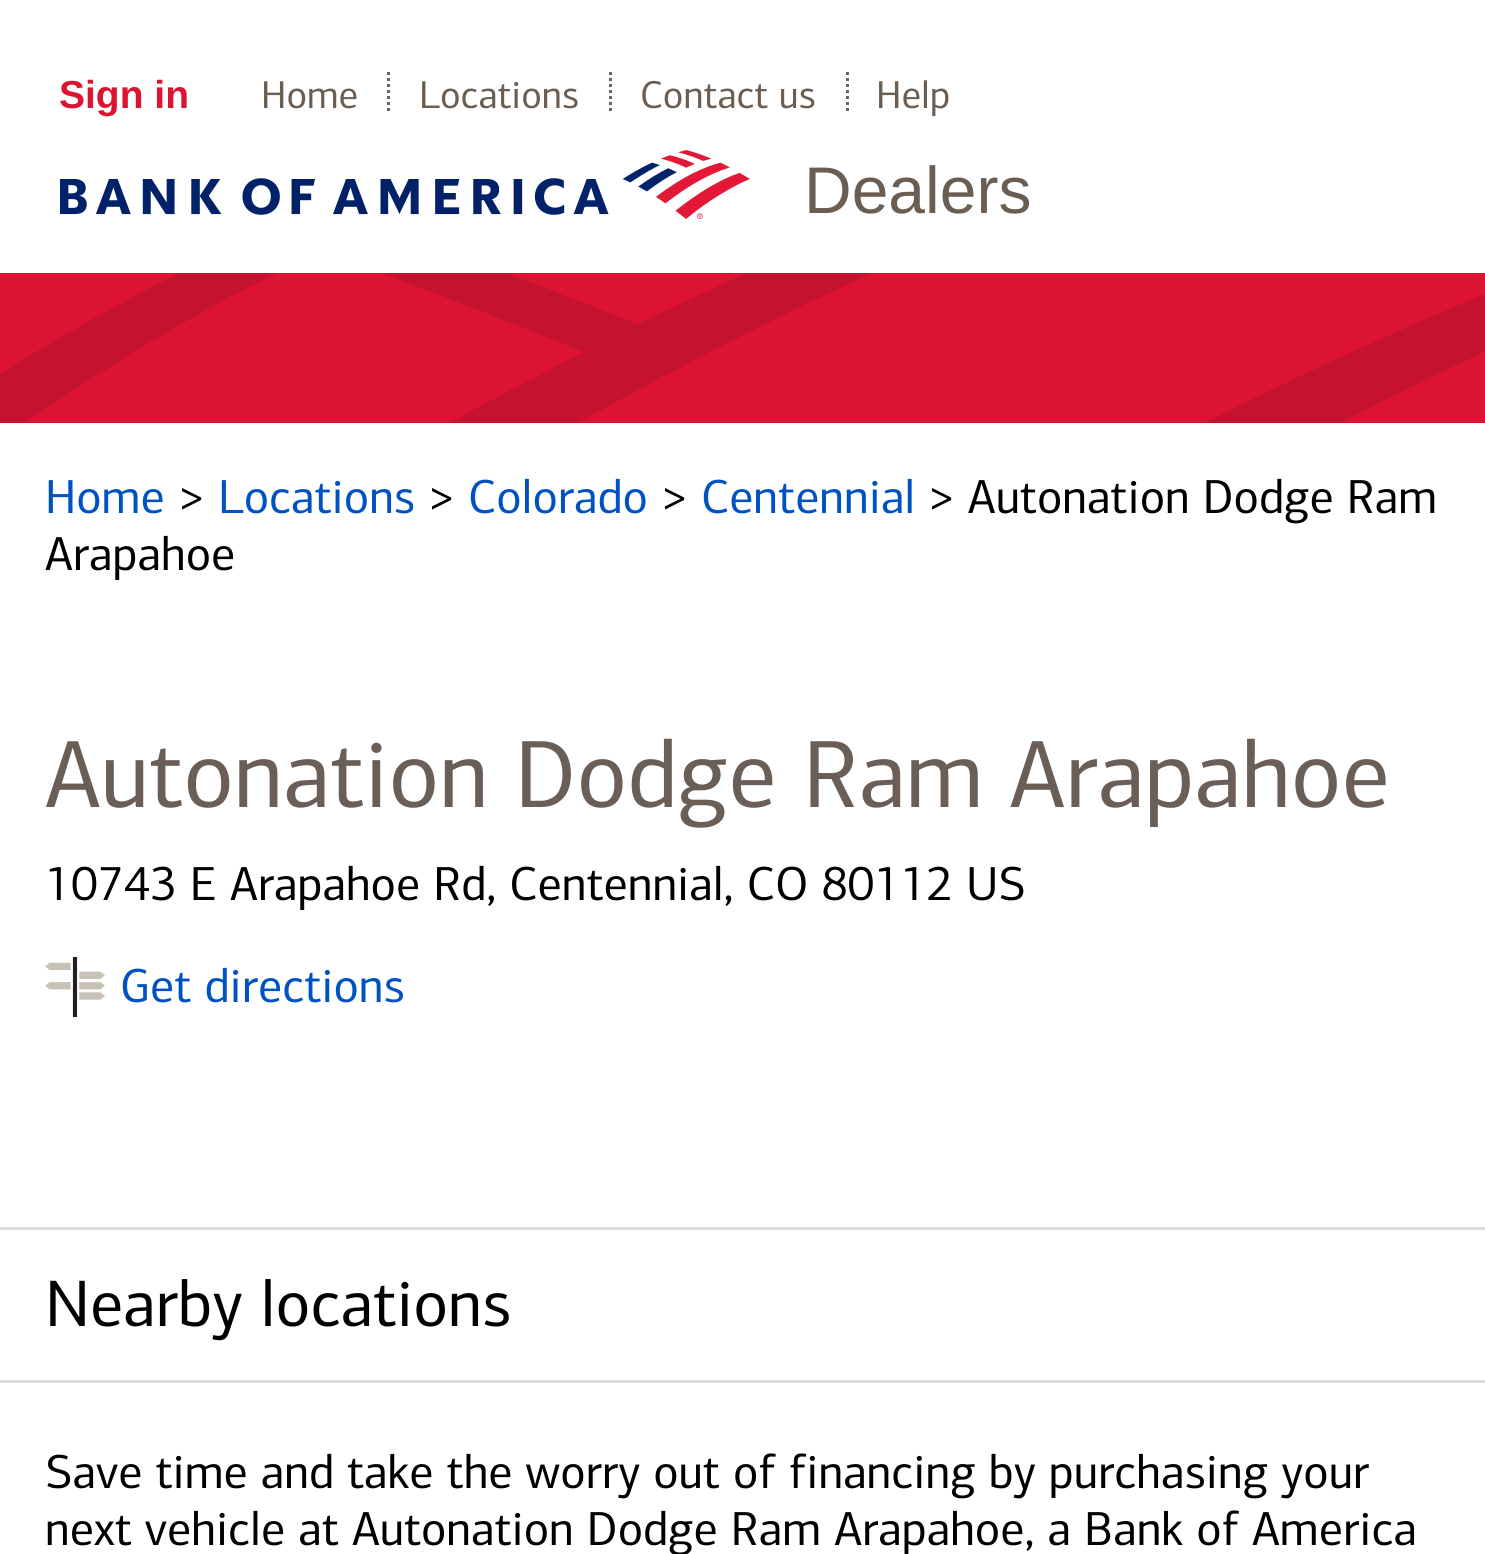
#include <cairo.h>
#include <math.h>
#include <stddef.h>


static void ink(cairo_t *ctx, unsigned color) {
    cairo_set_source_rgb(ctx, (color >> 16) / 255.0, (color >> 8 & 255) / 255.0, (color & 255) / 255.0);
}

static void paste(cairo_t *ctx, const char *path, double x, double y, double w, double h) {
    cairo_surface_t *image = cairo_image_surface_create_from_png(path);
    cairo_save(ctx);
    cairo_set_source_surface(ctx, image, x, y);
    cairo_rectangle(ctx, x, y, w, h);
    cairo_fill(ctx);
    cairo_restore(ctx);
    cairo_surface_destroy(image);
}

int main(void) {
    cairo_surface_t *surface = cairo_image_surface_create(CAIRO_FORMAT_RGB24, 1485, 1554);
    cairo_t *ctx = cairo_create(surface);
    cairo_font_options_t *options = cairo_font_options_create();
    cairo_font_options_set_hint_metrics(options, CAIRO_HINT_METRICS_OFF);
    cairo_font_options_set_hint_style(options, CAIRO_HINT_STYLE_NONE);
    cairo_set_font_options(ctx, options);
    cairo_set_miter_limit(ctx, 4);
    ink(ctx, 0xFFFFFF);
    cairo_paint(ctx);
    cairo_select_font_face(ctx, "Liberation Sans", CAIRO_FONT_SLANT_NORMAL, CAIRO_FONT_WEIGHT_BOLD);
    cairo_set_font_size(ctx, 39);
    ink(ctx, 0xDC1431);
    cairo_move_to(ctx, 59, 108);
    cairo_show_text(ctx, "Sign in");
    cairo_new_path(ctx);
    cairo_move_to(ctx, 388.5, 72);
    cairo_line_to(ctx, 388.5, 114);
    ink(ctx, 0x666666);
    cairo_set_line_width(ctx, 3);
    cairo_set_dash(ctx, (double[]){3, 3}, 2, 0);
    cairo_stroke(ctx);
    cairo_select_font_face(ctx, "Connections", CAIRO_FONT_SLANT_NORMAL, CAIRO_FONT_WEIGHT_NORMAL);
    ink(ctx, 0x6B5E51);
    cairo_move_to(ctx, 261, 108);
    cairo_show_text(ctx, "Home");
    cairo_new_path(ctx);
    cairo_move_to(ctx, 610.5, 72);
    cairo_line_to(ctx, 610.5, 114);
    ink(ctx, 0x666666);
    cairo_stroke(ctx);
    ink(ctx, 0x6B5E51);
    cairo_move_to(ctx, 419, 108);
    cairo_show_text(ctx, "Locations");
    cairo_new_path(ctx);
    cairo_move_to(ctx, 847.5, 72);
    cairo_line_to(ctx, 847.5, 114);
    ink(ctx, 0x666666);
    cairo_stroke(ctx);
    ink(ctx, 0x6B5E51);
    cairo_move_to(ctx, 640, 108);
    cairo_show_text(ctx, "Contact us");
    cairo_move_to(ctx, 876, 108);
    cairo_show_text(ctx, "Help");
    paste(ctx, "media/1.png", 60, 150, 690, 69);
    cairo_select_font_face(ctx, "Liberation Sans", CAIRO_FONT_SLANT_NORMAL, CAIRO_FONT_WEIGHT_NORMAL);
    cairo_set_font_size(ctx, 66);
    cairo_move_to(ctx, 804, 213);
    cairo_show_text(ctx, "Dealers");
    paste(ctx, "media/2.png", 0, 273, 1485, 150);
    cairo_select_font_face(ctx, "Connections", CAIRO_FONT_SLANT_NORMAL, CAIRO_FONT_WEIGHT_NORMAL);
    cairo_set_font_size(ctx, 48);
    ink(ctx, 0x0052C2);
    cairo_move_to(ctx, 45, 513);
    cairo_show_text(ctx, "Home");
    ink(ctx, 0x000000);
    cairo_move_to(ctx, 178, 513);
    cairo_show_text(ctx, ">");
    ink(ctx, 0x0052C2);
    cairo_move_to(ctx, 218, 513);
    cairo_show_text(ctx, "Locations");
    ink(ctx, 0x000000);
    cairo_move_to(ctx, 428, 513);
    cairo_show_text(ctx, ">");
    ink(ctx, 0x0052C2);
    cairo_move_to(ctx, 468, 513);
    cairo_show_text(ctx, "Colorado");
    ink(ctx, 0x000000);
    cairo_move_to(ctx, 661, 513);
    cairo_show_text(ctx, ">");
    ink(ctx, 0x0052C2);
    cairo_move_to(ctx, 701, 513);
    cairo_show_text(ctx, "Centennial");
    ink(ctx, 0x000000);
    cairo_move_to(ctx, 928, 513);
    cairo_show_text(ctx, "> Autonation Dodge Ram");
    cairo_move_to(ctx, 45, 570);
    cairo_show_text(ctx, "Arapahoe");
    cairo_set_font_size(ctx, 96);
    ink(ctx, 0x6B5E57);
    cairo_move_to(ctx, 45, 807);
    cairo_show_text(ctx, "Autonation Dodge Ram Arapahoe");
    cairo_set_font_size(ctx, 48);
    ink(ctx, 0x000000);
    cairo_move_to(ctx, 45, 900);
    cairo_show_text(ctx, "10743 E Arapahoe Rd, Centennial, CO 80112 US");
    paste(ctx, "media/3.png", 45, 957, 60, 60);
    ink(ctx, 0x0052C2);
    cairo_move_to(ctx, 120, 1002);
    cairo_show_text(ctx, "Get directions");
    ink(ctx, 0xDCDCDC);
    cairo_rectangle(ctx, 0, 1227, 1485, 3);
    cairo_fill(ctx);
    cairo_rectangle(ctx, 0, 1380, 1485, 3);
    cairo_fill(ctx);
    cairo_set_font_size(ctx, 66);
    ink(ctx, 0x000000);
    cairo_move_to(ctx, 45, 1326);
    cairo_show_text(ctx, "Nearby locations");
    cairo_set_font_size(ctx, 48);
    cairo_move_to(ctx, 45, 1488);
    cairo_show_text(ctx, "Save time and take the worry out of financing by purchasing your");
    cairo_move_to(ctx, 45, 1545);
    cairo_show_text(ctx, "next vehicle at Autonation Dodge Ram Arapahoe, a Bank of America");
    cairo_surface_write_to_png(surface, "image.png");
    cairo_font_options_destroy(options);
    cairo_destroy(ctx);
    cairo_surface_destroy(surface);
    return 0;
}
